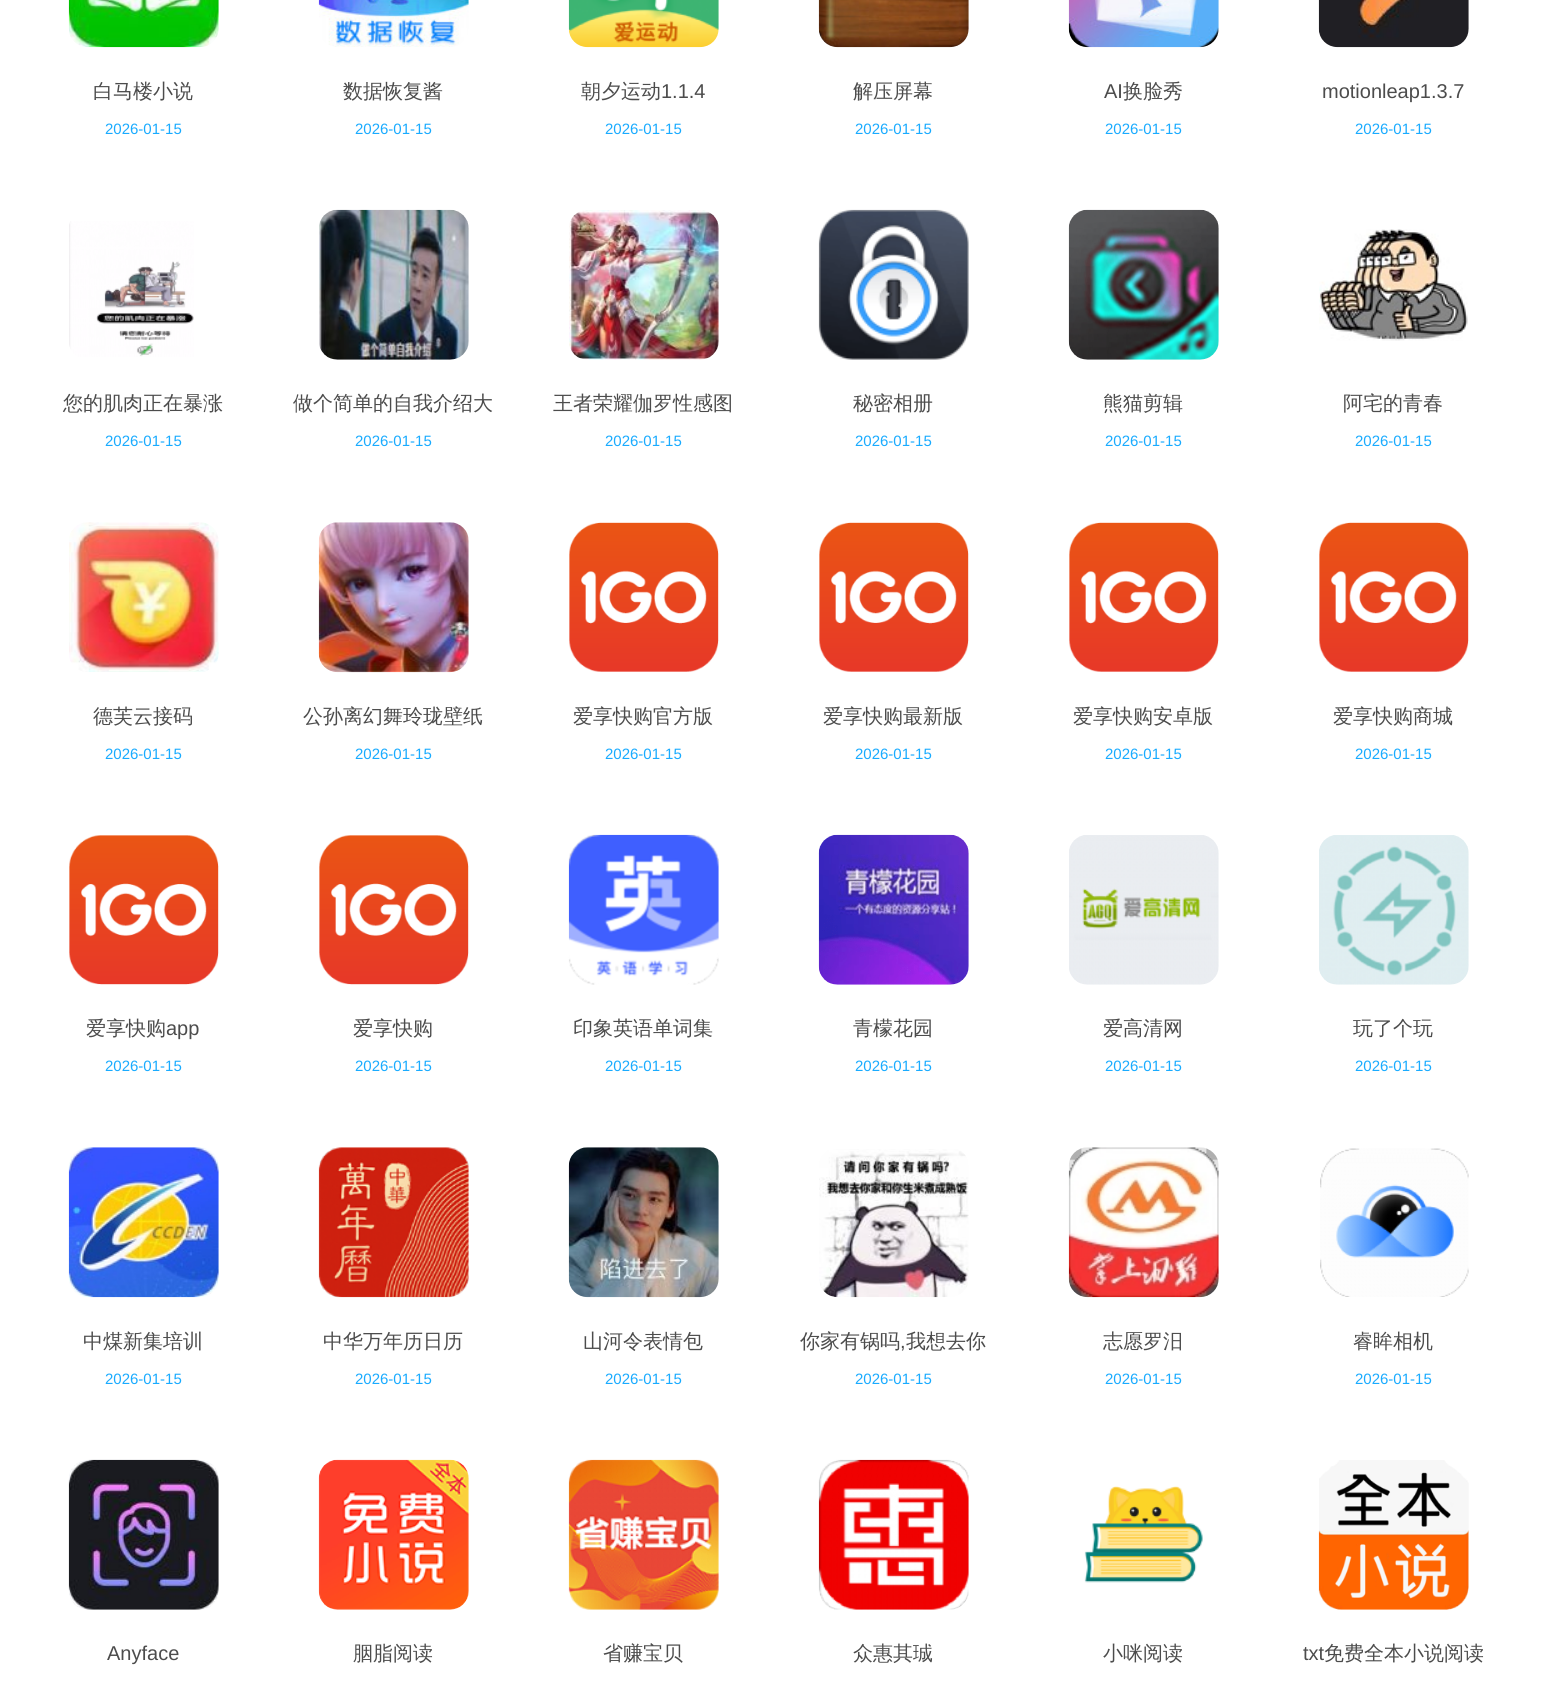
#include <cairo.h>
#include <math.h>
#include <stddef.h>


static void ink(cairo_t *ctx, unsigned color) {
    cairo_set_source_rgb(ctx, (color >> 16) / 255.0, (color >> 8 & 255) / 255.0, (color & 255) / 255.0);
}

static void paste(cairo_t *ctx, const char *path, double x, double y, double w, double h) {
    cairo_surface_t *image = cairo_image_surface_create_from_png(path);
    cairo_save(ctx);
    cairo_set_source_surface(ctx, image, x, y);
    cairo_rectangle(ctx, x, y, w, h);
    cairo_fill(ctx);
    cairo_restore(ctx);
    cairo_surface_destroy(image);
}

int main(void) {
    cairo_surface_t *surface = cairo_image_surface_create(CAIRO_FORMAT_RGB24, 1561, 1688);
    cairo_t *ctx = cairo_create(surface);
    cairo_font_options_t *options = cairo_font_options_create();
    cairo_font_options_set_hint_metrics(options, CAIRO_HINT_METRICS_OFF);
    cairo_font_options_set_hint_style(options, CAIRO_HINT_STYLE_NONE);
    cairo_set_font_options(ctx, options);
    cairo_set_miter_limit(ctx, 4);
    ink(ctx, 0xFFFFFF);
    cairo_paint(ctx);
    paste(ctx, "media/1.png", 68, 0, 151, 48);
    cairo_select_font_face(ctx, "WenQuanYi Zen Hei Medium", CAIRO_FONT_SLANT_NORMAL, CAIRO_FONT_WEIGHT_NORMAL);
    cairo_set_font_size(ctx, 20);
    ink(ctx, 0x4C4C4C);
    cairo_move_to(ctx, 93, 98);
    cairo_show_text(ctx, "白马楼小说");
    cairo_select_font_face(ctx, "Liberation Sans", CAIRO_FONT_SLANT_NORMAL, CAIRO_FONT_WEIGHT_NORMAL);
    cairo_set_font_size(ctx, 15);
    ink(ctx, 0x19ABFF);
    cairo_move_to(ctx, 105, 134);
    cairo_show_text(ctx, "2026-01-15");
    paste(ctx, "media/2.png", 318, 0, 151, 47);
    cairo_select_font_face(ctx, "WenQuanYi Zen Hei Medium", CAIRO_FONT_SLANT_NORMAL, CAIRO_FONT_WEIGHT_NORMAL);
    cairo_set_font_size(ctx, 20);
    ink(ctx, 0x4C4C4C);
    cairo_move_to(ctx, 343, 98);
    cairo_show_text(ctx, "数据恢复酱");
    cairo_select_font_face(ctx, "Liberation Sans", CAIRO_FONT_SLANT_NORMAL, CAIRO_FONT_WEIGHT_NORMAL);
    cairo_set_font_size(ctx, 15);
    ink(ctx, 0x19ABFF);
    cairo_move_to(ctx, 355, 134);
    cairo_show_text(ctx, "2026-01-15");
    paste(ctx, "media/3.png", 568, 0, 151, 48);
    cairo_select_font_face(ctx, "WenQuanYi Zen Hei Medium", CAIRO_FONT_SLANT_NORMAL, CAIRO_FONT_WEIGHT_NORMAL);
    cairo_set_font_size(ctx, 20);
    ink(ctx, 0x4C4C4C);
    cairo_move_to(ctx, 581, 98);
    cairo_show_text(ctx, "朝夕运动");
    cairo_select_font_face(ctx, "Liberation Sans", CAIRO_FONT_SLANT_NORMAL, CAIRO_FONT_WEIGHT_NORMAL);
    cairo_move_to(ctx, 661, 98);
    cairo_show_text(ctx, "1.1.4");
    cairo_set_font_size(ctx, 15);
    ink(ctx, 0x19ABFF);
    cairo_move_to(ctx, 605, 134);
    cairo_show_text(ctx, "2026-01-15");
    paste(ctx, "media/4.png", 818, 0, 151, 48);
    cairo_select_font_face(ctx, "WenQuanYi Zen Hei Medium", CAIRO_FONT_SLANT_NORMAL, CAIRO_FONT_WEIGHT_NORMAL);
    cairo_set_font_size(ctx, 20);
    ink(ctx, 0x4C4C4C);
    cairo_move_to(ctx, 853, 98);
    cairo_show_text(ctx, "解压屏幕");
    cairo_select_font_face(ctx, "Liberation Sans", CAIRO_FONT_SLANT_NORMAL, CAIRO_FONT_WEIGHT_NORMAL);
    cairo_set_font_size(ctx, 15);
    ink(ctx, 0x19ABFF);
    cairo_move_to(ctx, 855, 134);
    cairo_show_text(ctx, "2026-01-15");
    paste(ctx, "media/5.png", 1068, 0, 151, 48);
    cairo_set_font_size(ctx, 20);
    ink(ctx, 0x4C4C4C);
    cairo_move_to(ctx, 1104, 98);
    cairo_show_text(ctx, "AI");
    cairo_select_font_face(ctx, "WenQuanYi Zen Hei Medium", CAIRO_FONT_SLANT_NORMAL, CAIRO_FONT_WEIGHT_NORMAL);
    cairo_move_to(ctx, 1123, 98);
    cairo_show_text(ctx, "换脸秀");
    cairo_select_font_face(ctx, "Liberation Sans", CAIRO_FONT_SLANT_NORMAL, CAIRO_FONT_WEIGHT_NORMAL);
    cairo_set_font_size(ctx, 15);
    ink(ctx, 0x19ABFF);
    cairo_move_to(ctx, 1105, 134);
    cairo_show_text(ctx, "2026-01-15");
    paste(ctx, "media/6.png", 1318, 0, 151, 48);
    cairo_set_font_size(ctx, 20);
    ink(ctx, 0x4C4C4C);
    cairo_move_to(ctx, 1322, 98);
    cairo_show_text(ctx, "motionleap1.3.7");
    cairo_set_font_size(ctx, 15);
    ink(ctx, 0x19ABFF);
    cairo_move_to(ctx, 1355, 134);
    cairo_show_text(ctx, "2026-01-15");
    paste(ctx, "media/7.png", 69, 221, 125, 136);
    cairo_select_font_face(ctx, "WenQuanYi Zen Hei Medium", CAIRO_FONT_SLANT_NORMAL, CAIRO_FONT_WEIGHT_NORMAL);
    cairo_set_font_size(ctx, 20);
    ink(ctx, 0x4C4C4C);
    cairo_move_to(ctx, 63, 410);
    cairo_show_text(ctx, "您的肌肉正在暴涨");
    cairo_select_font_face(ctx, "Liberation Sans", CAIRO_FONT_SLANT_NORMAL, CAIRO_FONT_WEIGHT_NORMAL);
    cairo_set_font_size(ctx, 15);
    ink(ctx, 0x19ABFF);
    cairo_move_to(ctx, 105, 446);
    cairo_show_text(ctx, "2026-01-15");
    paste(ctx, "media/8.png", 319, 209, 150, 151);
    cairo_select_font_face(ctx, "WenQuanYi Zen Hei Medium", CAIRO_FONT_SLANT_NORMAL, CAIRO_FONT_WEIGHT_NORMAL);
    cairo_set_font_size(ctx, 20);
    ink(ctx, 0x4C4C4C);
    cairo_move_to(ctx, 293, 410);
    cairo_show_text(ctx, "做个简单的自我介绍大");
    cairo_select_font_face(ctx, "Liberation Sans", CAIRO_FONT_SLANT_NORMAL, CAIRO_FONT_WEIGHT_NORMAL);
    cairo_set_font_size(ctx, 15);
    ink(ctx, 0x19ABFF);
    cairo_move_to(ctx, 355, 446);
    cairo_show_text(ctx, "2026-01-15");
    paste(ctx, "media/9.png", 569, 210, 150, 150);
    cairo_select_font_face(ctx, "WenQuanYi Zen Hei Medium", CAIRO_FONT_SLANT_NORMAL, CAIRO_FONT_WEIGHT_NORMAL);
    cairo_set_font_size(ctx, 20);
    ink(ctx, 0x4C4C4C);
    cairo_move_to(ctx, 553, 410);
    cairo_show_text(ctx, "王者荣耀伽罗性感图");
    cairo_select_font_face(ctx, "Liberation Sans", CAIRO_FONT_SLANT_NORMAL, CAIRO_FONT_WEIGHT_NORMAL);
    cairo_set_font_size(ctx, 15);
    ink(ctx, 0x19ABFF);
    cairo_move_to(ctx, 605, 446);
    cairo_show_text(ctx, "2026-01-15");
    paste(ctx, "media/10.png", 818, 209, 151, 151);
    cairo_select_font_face(ctx, "WenQuanYi Zen Hei Medium", CAIRO_FONT_SLANT_NORMAL, CAIRO_FONT_WEIGHT_NORMAL);
    cairo_set_font_size(ctx, 20);
    ink(ctx, 0x4C4C4C);
    cairo_move_to(ctx, 853, 410);
    cairo_show_text(ctx, "秘密相册");
    cairo_select_font_face(ctx, "Liberation Sans", CAIRO_FONT_SLANT_NORMAL, CAIRO_FONT_WEIGHT_NORMAL);
    cairo_set_font_size(ctx, 15);
    ink(ctx, 0x19ABFF);
    cairo_move_to(ctx, 855, 446);
    cairo_show_text(ctx, "2026-01-15");
    paste(ctx, "media/11.png", 1068, 209, 151, 151);
    cairo_select_font_face(ctx, "WenQuanYi Zen Hei Medium", CAIRO_FONT_SLANT_NORMAL, CAIRO_FONT_WEIGHT_NORMAL);
    cairo_set_font_size(ctx, 20);
    ink(ctx, 0x4C4C4C);
    cairo_move_to(ctx, 1103, 410);
    cairo_show_text(ctx, "熊猫剪辑");
    cairo_select_font_face(ctx, "Liberation Sans", CAIRO_FONT_SLANT_NORMAL, CAIRO_FONT_WEIGHT_NORMAL);
    cairo_set_font_size(ctx, 15);
    ink(ctx, 0x19ABFF);
    cairo_move_to(ctx, 1105, 446);
    cairo_show_text(ctx, "2026-01-15");
    paste(ctx, "media/12.png", 1319, 229, 149, 112);
    cairo_select_font_face(ctx, "WenQuanYi Zen Hei Medium", CAIRO_FONT_SLANT_NORMAL, CAIRO_FONT_WEIGHT_NORMAL);
    cairo_set_font_size(ctx, 20);
    ink(ctx, 0x4C4C4C);
    cairo_move_to(ctx, 1343, 410);
    cairo_show_text(ctx, "阿宅的青春");
    cairo_select_font_face(ctx, "Liberation Sans", CAIRO_FONT_SLANT_NORMAL, CAIRO_FONT_WEIGHT_NORMAL);
    cairo_set_font_size(ctx, 15);
    ink(ctx, 0x19ABFF);
    cairo_move_to(ctx, 1355, 446);
    cairo_show_text(ctx, "2026-01-15");
    paste(ctx, "media/13.png", 69, 522, 150, 150);
    cairo_select_font_face(ctx, "WenQuanYi Zen Hei Medium", CAIRO_FONT_SLANT_NORMAL, CAIRO_FONT_WEIGHT_NORMAL);
    cairo_set_font_size(ctx, 20);
    ink(ctx, 0x4C4C4C);
    cairo_move_to(ctx, 93, 723);
    cairo_show_text(ctx, "德芙云接码");
    cairo_select_font_face(ctx, "Liberation Sans", CAIRO_FONT_SLANT_NORMAL, CAIRO_FONT_WEIGHT_NORMAL);
    cairo_set_font_size(ctx, 15);
    ink(ctx, 0x19ABFF);
    cairo_move_to(ctx, 105, 759);
    cairo_show_text(ctx, "2026-01-15");
    paste(ctx, "media/14.png", 318, 522, 151, 151);
    cairo_select_font_face(ctx, "WenQuanYi Zen Hei Medium", CAIRO_FONT_SLANT_NORMAL, CAIRO_FONT_WEIGHT_NORMAL);
    cairo_set_font_size(ctx, 20);
    ink(ctx, 0x4C4C4C);
    cairo_move_to(ctx, 303, 723);
    cairo_show_text(ctx, "公孙离幻舞玲珑壁纸");
    cairo_select_font_face(ctx, "Liberation Sans", CAIRO_FONT_SLANT_NORMAL, CAIRO_FONT_WEIGHT_NORMAL);
    cairo_set_font_size(ctx, 15);
    ink(ctx, 0x19ABFF);
    cairo_move_to(ctx, 355, 759);
    cairo_show_text(ctx, "2026-01-15");
    paste(ctx, "media/15.png", 569, 522, 150, 150);
    cairo_select_font_face(ctx, "WenQuanYi Zen Hei Medium", CAIRO_FONT_SLANT_NORMAL, CAIRO_FONT_WEIGHT_NORMAL);
    cairo_set_font_size(ctx, 20);
    ink(ctx, 0x4C4C4C);
    cairo_move_to(ctx, 573, 723);
    cairo_show_text(ctx, "爱享快购官方版");
    cairo_select_font_face(ctx, "Liberation Sans", CAIRO_FONT_SLANT_NORMAL, CAIRO_FONT_WEIGHT_NORMAL);
    cairo_set_font_size(ctx, 15);
    ink(ctx, 0x19ABFF);
    cairo_move_to(ctx, 605, 759);
    cairo_show_text(ctx, "2026-01-15");
    paste(ctx, "media/16.png", 819, 522, 150, 150);
    cairo_select_font_face(ctx, "WenQuanYi Zen Hei Medium", CAIRO_FONT_SLANT_NORMAL, CAIRO_FONT_WEIGHT_NORMAL);
    cairo_set_font_size(ctx, 20);
    ink(ctx, 0x4C4C4C);
    cairo_move_to(ctx, 823, 723);
    cairo_show_text(ctx, "爱享快购最新版");
    cairo_select_font_face(ctx, "Liberation Sans", CAIRO_FONT_SLANT_NORMAL, CAIRO_FONT_WEIGHT_NORMAL);
    cairo_set_font_size(ctx, 15);
    ink(ctx, 0x19ABFF);
    cairo_move_to(ctx, 855, 759);
    cairo_show_text(ctx, "2026-01-15");
    paste(ctx, "media/17.png", 1069, 522, 150, 150);
    cairo_select_font_face(ctx, "WenQuanYi Zen Hei Medium", CAIRO_FONT_SLANT_NORMAL, CAIRO_FONT_WEIGHT_NORMAL);
    cairo_set_font_size(ctx, 20);
    ink(ctx, 0x4C4C4C);
    cairo_move_to(ctx, 1073, 723);
    cairo_show_text(ctx, "爱享快购安卓版");
    cairo_select_font_face(ctx, "Liberation Sans", CAIRO_FONT_SLANT_NORMAL, CAIRO_FONT_WEIGHT_NORMAL);
    cairo_set_font_size(ctx, 15);
    ink(ctx, 0x19ABFF);
    cairo_move_to(ctx, 1105, 759);
    cairo_show_text(ctx, "2026-01-15");
    paste(ctx, "media/18.png", 1319, 522, 150, 150);
    cairo_select_font_face(ctx, "WenQuanYi Zen Hei Medium", CAIRO_FONT_SLANT_NORMAL, CAIRO_FONT_WEIGHT_NORMAL);
    cairo_set_font_size(ctx, 20);
    ink(ctx, 0x4C4C4C);
    cairo_move_to(ctx, 1333, 723);
    cairo_show_text(ctx, "爱享快购商城");
    cairo_select_font_face(ctx, "Liberation Sans", CAIRO_FONT_SLANT_NORMAL, CAIRO_FONT_WEIGHT_NORMAL);
    cairo_set_font_size(ctx, 15);
    ink(ctx, 0x19ABFF);
    cairo_move_to(ctx, 1355, 759);
    cairo_show_text(ctx, "2026-01-15");
    paste(ctx, "media/19.png", 69, 835, 150, 150);
    cairo_select_font_face(ctx, "WenQuanYi Zen Hei Medium", CAIRO_FONT_SLANT_NORMAL, CAIRO_FONT_WEIGHT_NORMAL);
    cairo_set_font_size(ctx, 20);
    ink(ctx, 0x4C4C4C);
    cairo_move_to(ctx, 86, 1035);
    cairo_show_text(ctx, "爱享快购");
    cairo_select_font_face(ctx, "Liberation Sans", CAIRO_FONT_SLANT_NORMAL, CAIRO_FONT_WEIGHT_NORMAL);
    cairo_move_to(ctx, 166, 1035);
    cairo_show_text(ctx, "app");
    cairo_set_font_size(ctx, 15);
    ink(ctx, 0x19ABFF);
    cairo_move_to(ctx, 105, 1071);
    cairo_show_text(ctx, "2026-01-15");
    paste(ctx, "media/20.png", 319, 835, 150, 150);
    cairo_select_font_face(ctx, "WenQuanYi Zen Hei Medium", CAIRO_FONT_SLANT_NORMAL, CAIRO_FONT_WEIGHT_NORMAL);
    cairo_set_font_size(ctx, 20);
    ink(ctx, 0x4C4C4C);
    cairo_move_to(ctx, 353, 1035);
    cairo_show_text(ctx, "爱享快购");
    cairo_select_font_face(ctx, "Liberation Sans", CAIRO_FONT_SLANT_NORMAL, CAIRO_FONT_WEIGHT_NORMAL);
    cairo_set_font_size(ctx, 15);
    ink(ctx, 0x19ABFF);
    cairo_move_to(ctx, 355, 1071);
    cairo_show_text(ctx, "2026-01-15");
    paste(ctx, "media/21.png", 568, 834, 151, 151);
    cairo_select_font_face(ctx, "WenQuanYi Zen Hei Medium", CAIRO_FONT_SLANT_NORMAL, CAIRO_FONT_WEIGHT_NORMAL);
    cairo_set_font_size(ctx, 20);
    ink(ctx, 0x4C4C4C);
    cairo_move_to(ctx, 573, 1035);
    cairo_show_text(ctx, "印象英语单词集");
    cairo_select_font_face(ctx, "Liberation Sans", CAIRO_FONT_SLANT_NORMAL, CAIRO_FONT_WEIGHT_NORMAL);
    cairo_set_font_size(ctx, 15);
    ink(ctx, 0x19ABFF);
    cairo_move_to(ctx, 605, 1071);
    cairo_show_text(ctx, "2026-01-15");
    paste(ctx, "media/22.png", 818, 834, 151, 151);
    cairo_select_font_face(ctx, "WenQuanYi Zen Hei Medium", CAIRO_FONT_SLANT_NORMAL, CAIRO_FONT_WEIGHT_NORMAL);
    cairo_set_font_size(ctx, 20);
    ink(ctx, 0x4C4C4C);
    cairo_move_to(ctx, 853, 1035);
    cairo_show_text(ctx, "青檬花园");
    cairo_select_font_face(ctx, "Liberation Sans", CAIRO_FONT_SLANT_NORMAL, CAIRO_FONT_WEIGHT_NORMAL);
    cairo_set_font_size(ctx, 15);
    ink(ctx, 0x19ABFF);
    cairo_move_to(ctx, 855, 1071);
    cairo_show_text(ctx, "2026-01-15");
    paste(ctx, "media/23.png", 1069, 835, 150, 150);
    cairo_select_font_face(ctx, "WenQuanYi Zen Hei Medium", CAIRO_FONT_SLANT_NORMAL, CAIRO_FONT_WEIGHT_NORMAL);
    cairo_set_font_size(ctx, 20);
    ink(ctx, 0x4C4C4C);
    cairo_move_to(ctx, 1103, 1035);
    cairo_show_text(ctx, "爱高清网");
    cairo_select_font_face(ctx, "Liberation Sans", CAIRO_FONT_SLANT_NORMAL, CAIRO_FONT_WEIGHT_NORMAL);
    cairo_set_font_size(ctx, 15);
    ink(ctx, 0x19ABFF);
    cairo_move_to(ctx, 1105, 1071);
    cairo_show_text(ctx, "2026-01-15");
    paste(ctx, "media/24.png", 1319, 835, 150, 150);
    cairo_select_font_face(ctx, "WenQuanYi Zen Hei Medium", CAIRO_FONT_SLANT_NORMAL, CAIRO_FONT_WEIGHT_NORMAL);
    cairo_set_font_size(ctx, 20);
    ink(ctx, 0x4C4C4C);
    cairo_move_to(ctx, 1353, 1035);
    cairo_show_text(ctx, "玩了个玩");
    cairo_select_font_face(ctx, "Liberation Sans", CAIRO_FONT_SLANT_NORMAL, CAIRO_FONT_WEIGHT_NORMAL);
    cairo_set_font_size(ctx, 15);
    ink(ctx, 0x19ABFF);
    cairo_move_to(ctx, 1355, 1071);
    cairo_show_text(ctx, "2026-01-15");
    paste(ctx, "media/25.png", 68, 1147, 151, 151);
    cairo_select_font_face(ctx, "WenQuanYi Zen Hei Medium", CAIRO_FONT_SLANT_NORMAL, CAIRO_FONT_WEIGHT_NORMAL);
    cairo_set_font_size(ctx, 20);
    ink(ctx, 0x4C4C4C);
    cairo_move_to(ctx, 83, 1348);
    cairo_show_text(ctx, "中煤新集培训");
    cairo_select_font_face(ctx, "Liberation Sans", CAIRO_FONT_SLANT_NORMAL, CAIRO_FONT_WEIGHT_NORMAL);
    cairo_set_font_size(ctx, 15);
    ink(ctx, 0x19ABFF);
    cairo_move_to(ctx, 105, 1384);
    cairo_show_text(ctx, "2026-01-15");
    paste(ctx, "media/26.png", 318, 1147, 151, 151);
    cairo_select_font_face(ctx, "WenQuanYi Zen Hei Medium", CAIRO_FONT_SLANT_NORMAL, CAIRO_FONT_WEIGHT_NORMAL);
    cairo_set_font_size(ctx, 20);
    ink(ctx, 0x4C4C4C);
    cairo_move_to(ctx, 323, 1348);
    cairo_show_text(ctx, "中华万年历日历");
    cairo_select_font_face(ctx, "Liberation Sans", CAIRO_FONT_SLANT_NORMAL, CAIRO_FONT_WEIGHT_NORMAL);
    cairo_set_font_size(ctx, 15);
    ink(ctx, 0x19ABFF);
    cairo_move_to(ctx, 355, 1384);
    cairo_show_text(ctx, "2026-01-15");
    paste(ctx, "media/27.png", 568, 1147, 151, 151);
    cairo_select_font_face(ctx, "WenQuanYi Zen Hei Medium", CAIRO_FONT_SLANT_NORMAL, CAIRO_FONT_WEIGHT_NORMAL);
    cairo_set_font_size(ctx, 20);
    ink(ctx, 0x4C4C4C);
    cairo_move_to(ctx, 583, 1348);
    cairo_show_text(ctx, "山河令表情包");
    cairo_select_font_face(ctx, "Liberation Sans", CAIRO_FONT_SLANT_NORMAL, CAIRO_FONT_WEIGHT_NORMAL);
    cairo_set_font_size(ctx, 15);
    ink(ctx, 0x19ABFF);
    cairo_move_to(ctx, 605, 1384);
    cairo_show_text(ctx, "2026-01-15");
    paste(ctx, "media/28.png", 819, 1149, 150, 149);
    cairo_select_font_face(ctx, "WenQuanYi Zen Hei Medium", CAIRO_FONT_SLANT_NORMAL, CAIRO_FONT_WEIGHT_NORMAL);
    cairo_set_font_size(ctx, 20);
    ink(ctx, 0x4C4C4C);
    cairo_move_to(ctx, 800, 1348);
    cairo_show_text(ctx, "你家有锅吗");
    cairo_select_font_face(ctx, "Liberation Sans", CAIRO_FONT_SLANT_NORMAL, CAIRO_FONT_WEIGHT_NORMAL);
    cairo_move_to(ctx, 900, 1348);
    cairo_show_text(ctx, ",");
    cairo_select_font_face(ctx, "WenQuanYi Zen Hei Medium", CAIRO_FONT_SLANT_NORMAL, CAIRO_FONT_WEIGHT_NORMAL);
    cairo_move_to(ctx, 906, 1348);
    cairo_show_text(ctx, "我想去你");
    cairo_select_font_face(ctx, "Liberation Sans", CAIRO_FONT_SLANT_NORMAL, CAIRO_FONT_WEIGHT_NORMAL);
    cairo_set_font_size(ctx, 15);
    ink(ctx, 0x19ABFF);
    cairo_move_to(ctx, 855, 1384);
    cairo_show_text(ctx, "2026-01-15");
    paste(ctx, "media/29.png", 1068, 1147, 151, 151);
    cairo_select_font_face(ctx, "WenQuanYi Zen Hei Medium", CAIRO_FONT_SLANT_NORMAL, CAIRO_FONT_WEIGHT_NORMAL);
    cairo_set_font_size(ctx, 20);
    ink(ctx, 0x4C4C4C);
    cairo_move_to(ctx, 1103, 1348);
    cairo_show_text(ctx, "志愿罗汨");
    cairo_select_font_face(ctx, "Liberation Sans", CAIRO_FONT_SLANT_NORMAL, CAIRO_FONT_WEIGHT_NORMAL);
    cairo_set_font_size(ctx, 15);
    ink(ctx, 0x19ABFF);
    cairo_move_to(ctx, 1105, 1384);
    cairo_show_text(ctx, "2026-01-15");
    paste(ctx, "media/30.png", 1320, 1148, 149, 149);
    cairo_select_font_face(ctx, "WenQuanYi Zen Hei Medium", CAIRO_FONT_SLANT_NORMAL, CAIRO_FONT_WEIGHT_NORMAL);
    cairo_set_font_size(ctx, 20);
    ink(ctx, 0x4C4C4C);
    cairo_move_to(ctx, 1353, 1348);
    cairo_show_text(ctx, "睿眸相机");
    cairo_select_font_face(ctx, "Liberation Sans", CAIRO_FONT_SLANT_NORMAL, CAIRO_FONT_WEIGHT_NORMAL);
    cairo_set_font_size(ctx, 15);
    ink(ctx, 0x19ABFF);
    cairo_move_to(ctx, 1355, 1384);
    cairo_show_text(ctx, "2026-01-15");
    paste(ctx, "media/31.png", 68, 1459, 151, 151);
    cairo_set_font_size(ctx, 20);
    ink(ctx, 0x4C4C4C);
    cairo_move_to(ctx, 107, 1660);
    cairo_show_text(ctx, "Anyface");
    paste(ctx, "media/32.png", 318, 1459, 151, 151);
    cairo_select_font_face(ctx, "WenQuanYi Zen Hei Medium", CAIRO_FONT_SLANT_NORMAL, CAIRO_FONT_WEIGHT_NORMAL);
    cairo_move_to(ctx, 353, 1660);
    cairo_show_text(ctx, "胭脂阅读");
    paste(ctx, "media/33.png", 568, 1459, 151, 151);
    cairo_move_to(ctx, 603, 1660);
    cairo_show_text(ctx, "省赚宝贝");
    paste(ctx, "media/34.png", 818, 1459, 151, 151);
    cairo_move_to(ctx, 853, 1660);
    cairo_show_text(ctx, "众惠其珹");
    paste(ctx, "media/35.png", 1084, 1486, 119, 97);
    cairo_move_to(ctx, 1103, 1660);
    cairo_show_text(ctx, "小咪阅读");
    paste(ctx, "media/36.png", 1318, 1460, 151, 150);
    cairo_select_font_face(ctx, "Liberation Sans", CAIRO_FONT_SLANT_NORMAL, CAIRO_FONT_WEIGHT_NORMAL);
    cairo_move_to(ctx, 1303, 1660);
    cairo_show_text(ctx, "txt");
    cairo_select_font_face(ctx, "WenQuanYi Zen Hei Medium", CAIRO_FONT_SLANT_NORMAL, CAIRO_FONT_WEIGHT_NORMAL);
    cairo_move_to(ctx, 1324, 1660);
    cairo_show_text(ctx, "免费全本小说阅读");
    cairo_surface_write_to_png(surface, "image.png");
    cairo_font_options_destroy(options);
    cairo_destroy(ctx);
    cairo_surface_destroy(surface);
    return 0;
}
